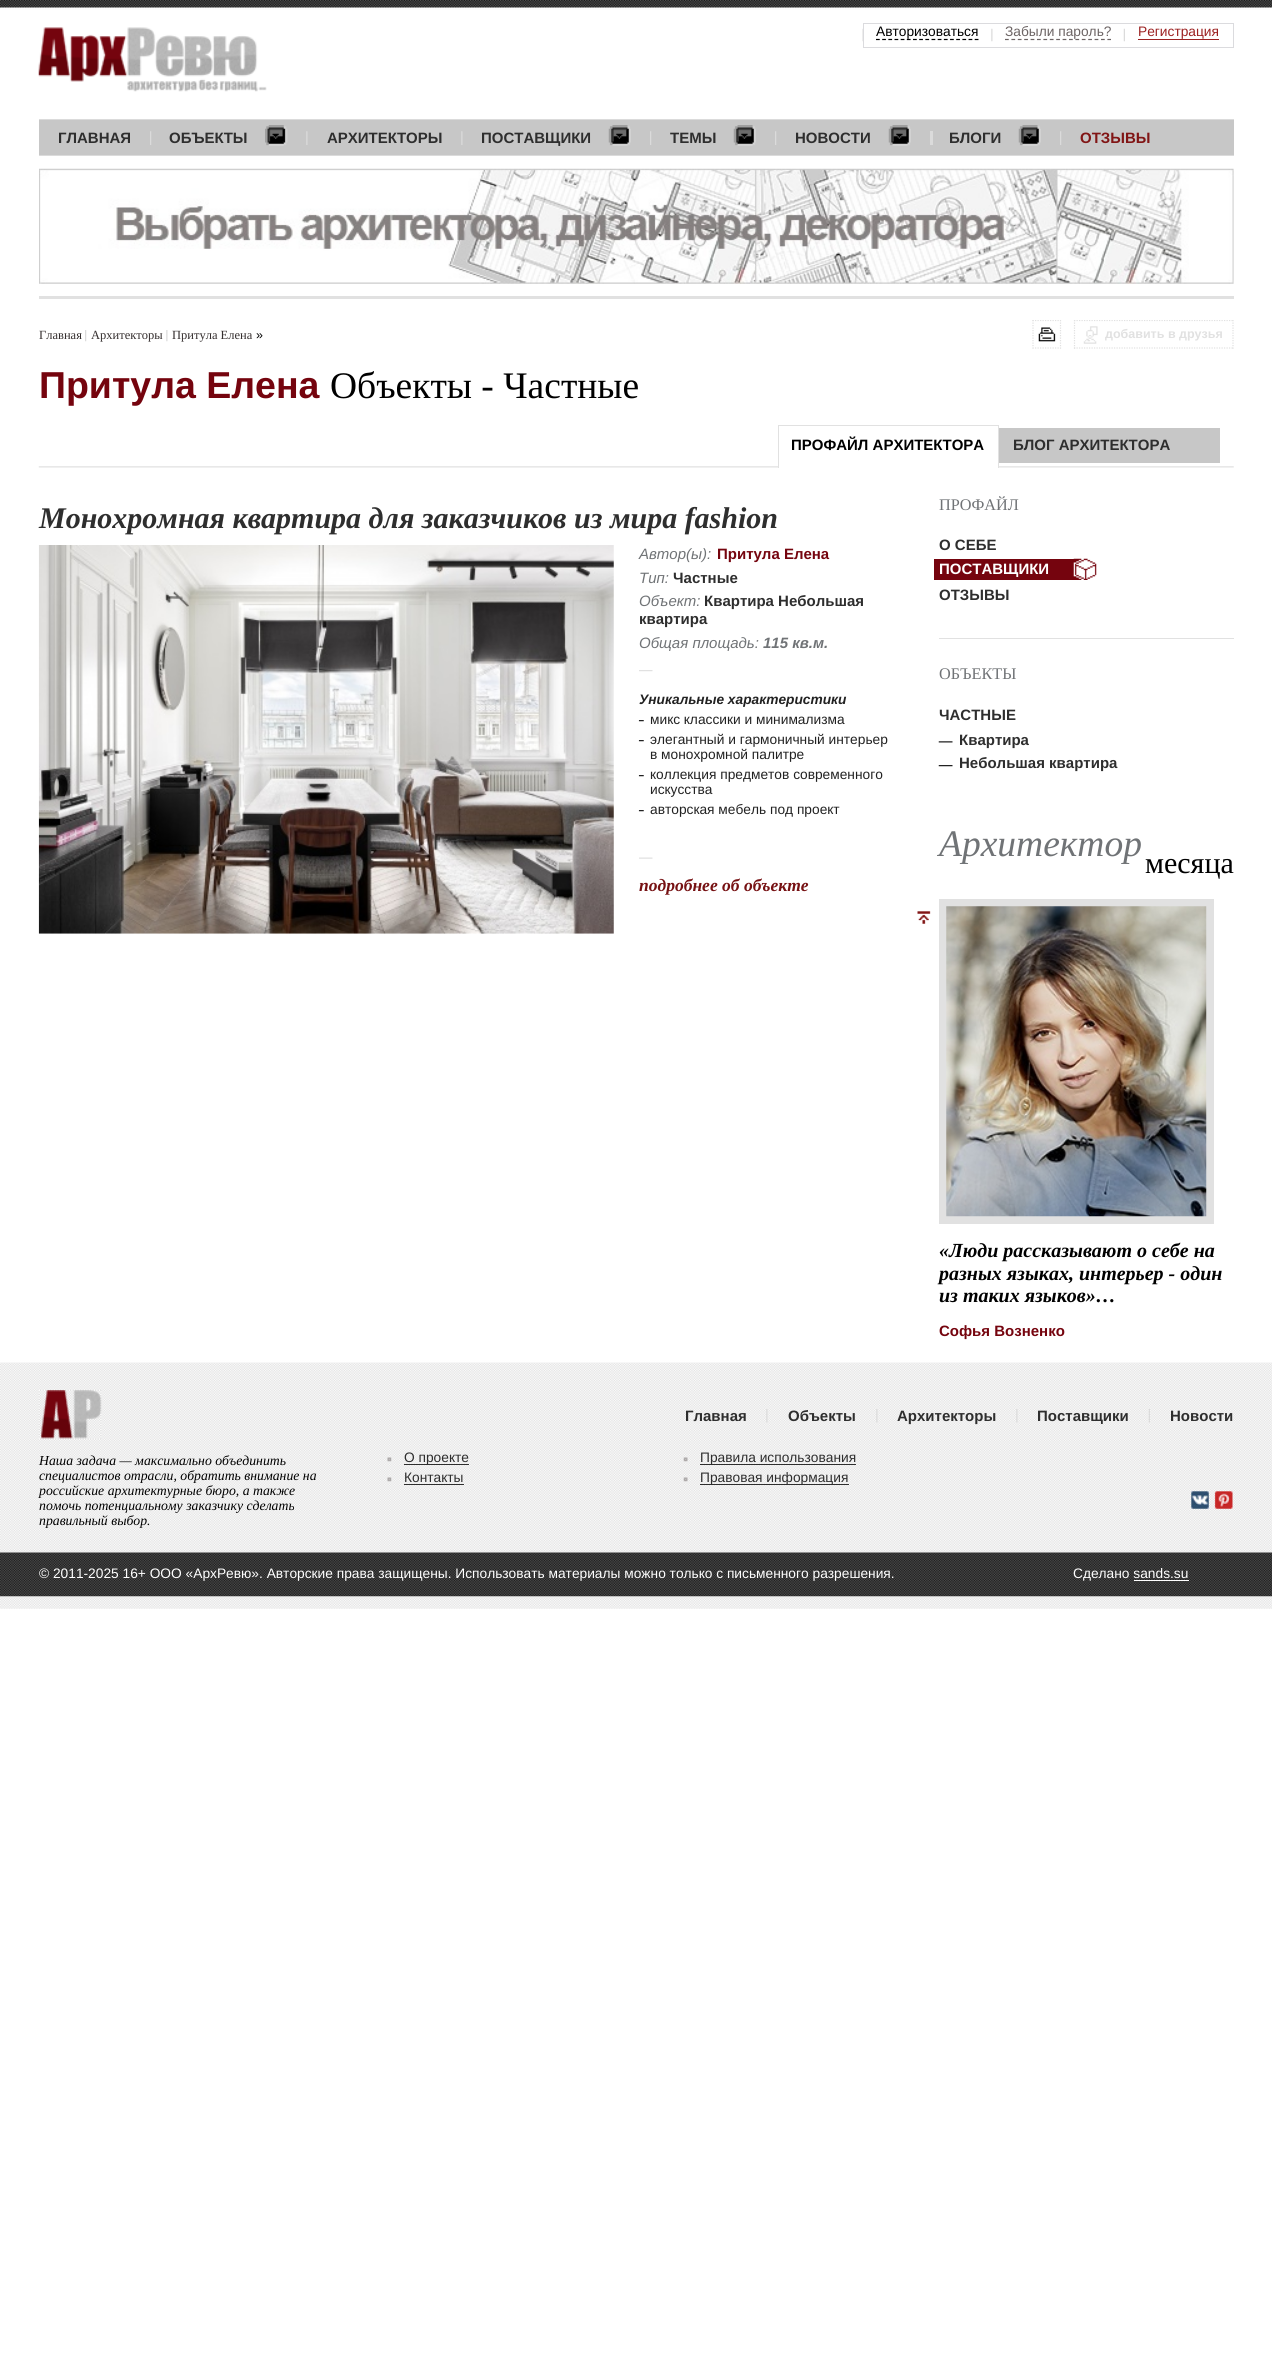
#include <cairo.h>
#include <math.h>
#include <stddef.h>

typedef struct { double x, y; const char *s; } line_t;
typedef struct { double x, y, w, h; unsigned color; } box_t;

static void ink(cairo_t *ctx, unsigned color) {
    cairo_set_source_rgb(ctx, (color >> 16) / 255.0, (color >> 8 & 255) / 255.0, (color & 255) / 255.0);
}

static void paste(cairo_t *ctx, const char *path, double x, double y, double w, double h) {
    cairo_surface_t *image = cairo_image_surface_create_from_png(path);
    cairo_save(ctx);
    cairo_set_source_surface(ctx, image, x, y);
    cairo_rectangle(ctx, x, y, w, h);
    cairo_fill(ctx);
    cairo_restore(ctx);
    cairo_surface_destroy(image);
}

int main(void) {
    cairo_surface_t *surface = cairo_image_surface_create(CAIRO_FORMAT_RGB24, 1272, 2361);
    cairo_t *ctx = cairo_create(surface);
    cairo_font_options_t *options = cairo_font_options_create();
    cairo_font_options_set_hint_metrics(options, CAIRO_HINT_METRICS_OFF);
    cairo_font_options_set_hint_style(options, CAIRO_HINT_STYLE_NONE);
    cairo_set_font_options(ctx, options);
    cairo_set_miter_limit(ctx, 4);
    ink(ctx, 0xFFFFFF);
    cairo_paint(ctx);
    paste(ctx, "media/1.png", 0, 0, 1272, 8);
    cairo_rectangle(ctx, 863.5, 23.5, 370, 24);
    ink(ctx, 0xDBDBDE);
    cairo_set_line_width(ctx, 1);
    cairo_stroke(ctx);
    paste(ctx, "media/2.png", 862, 28, 1, 14);
    cairo_new_path(ctx);
    cairo_move_to(ctx, 876, 39.5);
    cairo_line_to(ctx, 979, 39.5);
    ink(ctx, 0x000000);
    cairo_set_line_width(ctx, 1.2);
    cairo_set_dash(ctx, (double[]){3.75, 2.42}, 2, 0);
    cairo_stroke(ctx);
    cairo_select_font_face(ctx, "Liberation Sans", CAIRO_FONT_SLANT_NORMAL, CAIRO_FONT_WEIGHT_NORMAL);
    cairo_set_font_size(ctx, 13.75);
    cairo_move_to(ctx, 876, 36);
    cairo_show_text(ctx, "Авторизоваться");
    paste(ctx, "media/3.png", 991, 28, 2, 14);
    cairo_new_path(ctx);
    cairo_move_to(ctx, 1005, 39.5);
    cairo_line_to(ctx, 1111, 39.5);
    ink(ctx, 0x6C6464);
    cairo_set_dash(ctx, (double[]){3.75, 2.65}, 2, 0);
    cairo_stroke(ctx);
    cairo_move_to(ctx, 1005, 36);
    cairo_show_text(ctx, "Забыли пароль?");
    paste(ctx, "media/4.png", 1123, 28, 2, 14);
    ink(ctx, 0x9C2222);
    cairo_move_to(ctx, 1138, 36);
    cairo_show_text(ctx, "Регистрация");
    cairo_rectangle(ctx, 1138, 39, 81, 1);
    cairo_fill(ctx);
    paste(ctx, "media/5.png", 38, 27, 229, 65);
    {
        static const box_t items[] = {
            {39, 120, 1195, 35, 0xC7C7C7},
            {39, 119, 1195, 1, 0xDBDBDB},
            {39, 155, 1195, 1, 0xDBDBDB},
        };
        for (size_t i = 0; i < sizeof items / sizeof *items; i++) {
            ink(ctx, items[i].color);
            cairo_rectangle(ctx, items[i].x, items[i].y, items[i].w, items[i].h);
            cairo_fill(ctx);
        }
    }
    cairo_select_font_face(ctx, "Liberation Sans", CAIRO_FONT_SLANT_NORMAL, CAIRO_FONT_WEIGHT_BOLD);
    cairo_set_font_size(ctx, 15);
    ink(ctx, 0x2E2E2E);
    cairo_move_to(ctx, 58, 143);
    cairo_show_text(ctx, "ГЛАВНАЯ");
    paste(ctx, "media/6.png", 150, 131, 2, 14);
    cairo_move_to(ctx, 169, 143);
    cairo_show_text(ctx, "ОБЪЕКТЫ");
    paste(ctx, "media/7.png", 265, 125, 23, 21);
    paste(ctx, "media/8.png", 306, 131, 2, 14);
    cairo_move_to(ctx, 327, 143);
    cairo_show_text(ctx, "АРХИТЕКТОРЫ");
    paste(ctx, "media/8.png", 461, 131, 2, 14);
    cairo_move_to(ctx, 481, 143);
    cairo_show_text(ctx, "ПОСТАВЩИКИ");
    paste(ctx, "media/9.png", 608, 125, 23, 21);
    paste(ctx, "media/6.png", 650, 131, 2, 14);
    cairo_move_to(ctx, 670, 143);
    cairo_show_text(ctx, "ТЕМЫ");
    paste(ctx, "media/10.png", 733, 125, 23, 21);
    paste(ctx, "media/6.png", 775, 131, 2, 14);
    cairo_move_to(ctx, 795, 143);
    cairo_show_text(ctx, "НОВОСТИ");
    paste(ctx, "media/10.png", 888, 125, 23, 21);
    ink(ctx, 0xDBDBDB);
    cairo_rectangle(ctx, 930, 131, 3, 14);
    cairo_fill(ctx);
    ink(ctx, 0x2E2E2E);
    cairo_move_to(ctx, 949, 143);
    cairo_show_text(ctx, "БЛОГИ");
    paste(ctx, "media/11.png", 1018, 125, 23, 21);
    paste(ctx, "media/6.png", 1060, 131, 2, 14);
    ink(ctx, 0x811515);
    cairo_move_to(ctx, 1080, 143);
    cairo_show_text(ctx, "ОТЗЫВЫ");
    paste(ctx, "media/12.png", 39, 168, 1195, 116);
    ink(ctx, 0xE1E1E1);
    cairo_rectangle(ctx, 39, 296, 1195, 3);
    cairo_fill(ctx);
    cairo_select_font_face(ctx, "Liberation Serif", CAIRO_FONT_SLANT_NORMAL, CAIRO_FONT_WEIGHT_NORMAL);
    cairo_set_font_size(ctx, 12.5);
    ink(ctx, 0x342E2E);
    cairo_move_to(ctx, 39, 339);
    cairo_show_text(ctx, "Главная");
    paste(ctx, "media/13.png", 85, 330, 2, 12);
    cairo_move_to(ctx, 91, 339);
    cairo_show_text(ctx, "Архитекторы");
    paste(ctx, "media/14.png", 166, 330, 2, 12);
    cairo_move_to(ctx, 172, 339);
    cairo_show_text(ctx, "Притула Елена");
    cairo_select_font_face(ctx, "Liberation Sans", CAIRO_FONT_SLANT_NORMAL, CAIRO_FONT_WEIGHT_NORMAL);
    ink(ctx, 0x000000);
    cairo_move_to(ctx, 256, 339);
    cairo_show_text(ctx, "»");
    paste(ctx, "media/15.png", 1038, 327, 18, 15);
    cairo_save(ctx);
    cairo_rectangle(ctx, 39, 320, 1195, 29);
    cairo_clip(ctx);
    cairo_new_path(ctx);
    cairo_move_to(ctx, 1032.5, 320.5);
    cairo_line_to(ctx, 1061, 320.5);
    ink(ctx, 0xE1E1E1);
    cairo_set_dash(ctx, (double[]){1.25, 1.25}, 2, 0);
    cairo_stroke(ctx);
    cairo_restore(ctx);
    cairo_new_path(ctx);
    cairo_move_to(ctx, 1060.5, 320);
    cairo_line_to(ctx, 1060.5, 349);
    cairo_move_to(ctx, 1032.5, 348);
    cairo_line_to(ctx, 1061, 348);
    cairo_move_to(ctx, 1033, 320);
    cairo_line_to(ctx, 1033, 349);
    ink(ctx, 0xE1E1E1);
    cairo_set_dash(ctx, (double[]){1.25, 1.25}, 2, 0);
    cairo_stroke(ctx);
    paste(ctx, "media/16.png", 1083, 326, 15, 18);
    cairo_save(ctx);
    cairo_rectangle(ctx, 39, 320, 1195, 29);
    cairo_clip(ctx);
    cairo_new_path(ctx);
    cairo_move_to(ctx, 1074, 320.5);
    cairo_line_to(ctx, 1234, 320.5);
    cairo_stroke(ctx);
    cairo_restore(ctx);
    cairo_new_path(ctx);
    cairo_move_to(ctx, 1233, 320);
    cairo_line_to(ctx, 1233, 349);
    cairo_stroke(ctx);
    cairo_new_path(ctx);
    cairo_move_to(ctx, 1074, 348);
    cairo_line_to(ctx, 1234, 348);
    cairo_stroke(ctx);
    cairo_new_path(ctx);
    cairo_move_to(ctx, 1074.5, 320);
    cairo_line_to(ctx, 1074.5, 349);
    cairo_stroke(ctx);
    cairo_select_font_face(ctx, "Liberation Sans", CAIRO_FONT_SLANT_NORMAL, CAIRO_FONT_WEIGHT_BOLD);
    cairo_move_to(ctx, 1105, 338);
    cairo_show_text(ctx, "добавить в друзья");
    cairo_set_font_size(ctx, 37.5);
    ink(ctx, 0x75040E);
    cairo_move_to(ctx, 39, 398);
    cairo_show_text(ctx, "Притула Елена");
    cairo_select_font_face(ctx, "Liberation Serif", CAIRO_FONT_SLANT_NORMAL, CAIRO_FONT_WEIGHT_NORMAL);
    ink(ctx, 0x000000);
    cairo_move_to(ctx, 330, 398);
    cairo_show_text(ctx, "Объекты - Частные");
    paste(ctx, "media/17.png", 38, 466, 1196, 2);
    {
        static const box_t items[] = {
            {778, 425, 221, 1, 0xE1E1E1},
            {998, 425, 1, 43, 0xE1E1E1},
            {778, 425, 1, 43, 0xE1E1E1},
            {779, 466, 219, 2, 0xFFFFFF},
        };
        for (size_t i = 0; i < sizeof items / sizeof *items; i++) {
            ink(ctx, items[i].color);
            cairo_rectangle(ctx, items[i].x, items[i].y, items[i].w, items[i].h);
            cairo_fill(ctx);
        }
    }
    cairo_select_font_face(ctx, "Liberation Sans", CAIRO_FONT_SLANT_NORMAL, CAIRO_FONT_WEIGHT_BOLD);
    cairo_set_font_size(ctx, 15);
    ink(ctx, 0x000000);
    cairo_move_to(ctx, 791, 450);
    cairo_show_text(ctx, "ПРОФАЙЛ АРХИТЕКТОРА");
    ink(ctx, 0xC7C7C7);
    cairo_rectangle(ctx, 999, 428, 221, 35);
    cairo_fill(ctx);
    ink(ctx, 0x2E2E2E);
    cairo_move_to(ctx, 1013, 450);
    cairo_show_text(ctx, "БЛОГ АРХИТЕКТОРА");
    cairo_select_font_face(ctx, "Liberation Serif", CAIRO_FONT_SLANT_ITALIC, CAIRO_FONT_WEIGHT_BOLD);
    cairo_set_font_size(ctx, 30);
    cairo_move_to(ctx, 39, 528);
    cairo_show_text(ctx, "Монохромная квартира для заказчиков из мира fashion");
    paste(ctx, "media/18.png", 38, 545, 576, 389);
    cairo_select_font_face(ctx, "Liberation Sans", CAIRO_FONT_SLANT_ITALIC, CAIRO_FONT_WEIGHT_NORMAL);
    cairo_set_font_size(ctx, 15);
    ink(ctx, 0x707376);
    cairo_move_to(ctx, 639, 559);
    cairo_show_text(ctx, "Автор(ы):");
    cairo_select_font_face(ctx, "Liberation Sans", CAIRO_FONT_SLANT_NORMAL, CAIRO_FONT_WEIGHT_BOLD);
    ink(ctx, 0x75040E);
    cairo_move_to(ctx, 717, 559);
    cairo_show_text(ctx, "Притула Елена");
    cairo_select_font_face(ctx, "Liberation Sans", CAIRO_FONT_SLANT_ITALIC, CAIRO_FONT_WEIGHT_NORMAL);
    ink(ctx, 0x707376);
    cairo_move_to(ctx, 639, 583);
    cairo_show_text(ctx, "Тип:");
    cairo_select_font_face(ctx, "Liberation Sans", CAIRO_FONT_SLANT_NORMAL, CAIRO_FONT_WEIGHT_BOLD);
    ink(ctx, 0x2E2E2E);
    cairo_move_to(ctx, 673, 583);
    cairo_show_text(ctx, "Частные");
    cairo_select_font_face(ctx, "Liberation Sans", CAIRO_FONT_SLANT_ITALIC, CAIRO_FONT_WEIGHT_NORMAL);
    ink(ctx, 0x707376);
    cairo_move_to(ctx, 639, 606);
    cairo_show_text(ctx, "Объект:");
    cairo_select_font_face(ctx, "Liberation Sans", CAIRO_FONT_SLANT_NORMAL, CAIRO_FONT_WEIGHT_BOLD);
    ink(ctx, 0x2E2E2E);
    cairo_move_to(ctx, 704, 606);
    cairo_show_text(ctx, "Квартира Небольшая");
    cairo_move_to(ctx, 639, 624);
    cairo_show_text(ctx, "квартира");
    cairo_select_font_face(ctx, "Liberation Sans", CAIRO_FONT_SLANT_ITALIC, CAIRO_FONT_WEIGHT_NORMAL);
    ink(ctx, 0x707376);
    cairo_move_to(ctx, 639, 648);
    cairo_show_text(ctx, "Общая площадь:");
    cairo_select_font_face(ctx, "Liberation Sans", CAIRO_FONT_SLANT_ITALIC, CAIRO_FONT_WEIGHT_BOLD);
    cairo_move_to(ctx, 763, 648);
    cairo_show_text(ctx, "115 кв.м.");
    paste(ctx, "media/19.png", 639, 670, 14, 2);
    cairo_set_font_size(ctx, 13.75);
    ink(ctx, 0x222222);
    cairo_move_to(ctx, 639, 704);
    cairo_show_text(ctx, "Уникальные характеристики");
    paste(ctx, "media/20.png", 638, 720, 6, 2);
    cairo_select_font_face(ctx, "Liberation Sans", CAIRO_FONT_SLANT_NORMAL, CAIRO_FONT_WEIGHT_NORMAL);
    cairo_move_to(ctx, 650, 724);
    cairo_show_text(ctx, "микс классики и минимализма");
    paste(ctx, "media/20.png", 638, 740, 6, 2);
    cairo_move_to(ctx, 650, 744);
    cairo_show_text(ctx, "элегантный и гармоничный интерьер");
    cairo_move_to(ctx, 650, 759);
    cairo_show_text(ctx, "в монохромной палитре");
    paste(ctx, "media/20.png", 638, 775, 6, 2);
    cairo_move_to(ctx, 650, 779);
    cairo_show_text(ctx, "коллекция предметов современного");
    cairo_move_to(ctx, 650, 794);
    cairo_show_text(ctx, "искусства");
    paste(ctx, "media/20.png", 638, 810, 6, 2);
    cairo_move_to(ctx, 650, 814);
    cairo_show_text(ctx, "авторская мебель под проект");
    paste(ctx, "media/21.png", 639, 857, 14, 2);
    cairo_select_font_face(ctx, "Liberation Serif", CAIRO_FONT_SLANT_ITALIC, CAIRO_FONT_WEIGHT_BOLD);
    cairo_set_font_size(ctx, 17.5);
    ink(ctx, 0x761113);
    cairo_move_to(ctx, 639, 891);
    cairo_show_text(ctx, "подробнее об объекте");
    paste(ctx, "media/22.png", 917, 911, 14, 13);
    cairo_select_font_face(ctx, "Liberation Serif", CAIRO_FONT_SLANT_NORMAL, CAIRO_FONT_WEIGHT_NORMAL);
    cairo_set_font_size(ctx, 16.25);
    ink(ctx, 0x707376);
    cairo_move_to(ctx, 939, 510);
    cairo_show_text(ctx, "ПРОФАЙЛ");
    cairo_select_font_face(ctx, "Liberation Sans", CAIRO_FONT_SLANT_NORMAL, CAIRO_FONT_WEIGHT_BOLD);
    cairo_set_font_size(ctx, 15);
    ink(ctx, 0x2E2E2E);
    cairo_move_to(ctx, 939, 550);
    cairo_show_text(ctx, "О СЕБЕ");
    ink(ctx, 0x75040E);
    cairo_rectangle(ctx, 934, 559, 140, 21);
    cairo_fill(ctx);
    paste(ctx, "media/23.png", 1073, 558, 24, 22);
    ink(ctx, 0xFFFFFF);
    cairo_move_to(ctx, 939, 574);
    cairo_show_text(ctx, "ПОСТАВЩИКИ");
    ink(ctx, 0x2E2E2E);
    cairo_move_to(ctx, 939, 600);
    cairo_show_text(ctx, "ОТЗЫВЫ");
    ink(ctx, 0xE1E1E1);
    cairo_rectangle(ctx, 939, 638, 295, 1);
    cairo_fill(ctx);
    cairo_select_font_face(ctx, "Liberation Serif", CAIRO_FONT_SLANT_NORMAL, CAIRO_FONT_WEIGHT_NORMAL);
    cairo_set_font_size(ctx, 16.25);
    ink(ctx, 0x707376);
    cairo_move_to(ctx, 939, 679);
    cairo_show_text(ctx, "ОБЪЕКТЫ");
    cairo_select_font_face(ctx, "Liberation Sans", CAIRO_FONT_SLANT_NORMAL, CAIRO_FONT_WEIGHT_BOLD);
    cairo_set_font_size(ctx, 15);
    ink(ctx, 0x2E2E2E);
    cairo_move_to(ctx, 939, 720);
    cairo_show_text(ctx, "ЧАСТНЫЕ");
    paste(ctx, "media/24.png", 938, 741, 15, 2);
    cairo_move_to(ctx, 959, 745);
    cairo_show_text(ctx, "Квартира");
    paste(ctx, "media/25.png", 938, 765, 15, 2);
    cairo_move_to(ctx, 959, 768);
    cairo_show_text(ctx, "Небольшая квартира");
    cairo_select_font_face(ctx, "Liberation Serif", CAIRO_FONT_SLANT_ITALIC, CAIRO_FONT_WEIGHT_NORMAL);
    cairo_set_font_size(ctx, 37.5);
    ink(ctx, 0x707376);
    cairo_move_to(ctx, 939, 856);
    cairo_show_text(ctx, "Архитектор");
    cairo_select_font_face(ctx, "Liberation Serif", CAIRO_FONT_SLANT_NORMAL, CAIRO_FONT_WEIGHT_NORMAL);
    cairo_set_font_size(ctx, 30);
    ink(ctx, 0x000000);
    cairo_move_to(ctx, 1145, 873);
    cairo_show_text(ctx, "месяца");
    cairo_rectangle(ctx, 943, 903, 267, 317);
    ink(ctx, 0xE1E1E1);
    cairo_set_line_width(ctx, 8);
    cairo_set_dash(ctx, NULL, 0, 0);
    cairo_stroke(ctx);
    paste(ctx, "media/26.png", 946, 906, 261, 311);
    cairo_select_font_face(ctx, "Liberation Serif", CAIRO_FONT_SLANT_ITALIC, CAIRO_FONT_WEIGHT_BOLD);
    cairo_set_font_size(ctx, 20);
    ink(ctx, 0x000000);
    {
        static const line_t items[] = {
            {939, 1257, "«Люди рассказывают о себе на"},
            {939, 1280, "разных языках, интерьер - один"},
            {939, 1302, "из таких языков»…"},
        };
        for (size_t i = 0; i < sizeof items / sizeof *items; i++) {
            cairo_move_to(ctx, items[i].x, items[i].y);
            cairo_show_text(ctx, items[i].s);
        }
    }
    cairo_select_font_face(ctx, "Liberation Sans", CAIRO_FONT_SLANT_NORMAL, CAIRO_FONT_WEIGHT_BOLD);
    cairo_set_font_size(ctx, 15);
    ink(ctx, 0x75040E);
    cairo_move_to(ctx, 939, 1336);
    cairo_show_text(ctx, "Софья Возненко");
    paste(ctx, "media/27.png", 0, 1362, 1272, 247);
    paste(ctx, "media/28.png", 39, 1390, 63, 49);
    paste(ctx, "media/29.png", 766, 1409, 2, 14);
    ink(ctx, 0x2E2E2E);
    cairo_move_to(ctx, 685, 1421);
    cairo_show_text(ctx, "Главная");
    paste(ctx, "media/29.png", 876, 1409, 2, 14);
    cairo_move_to(ctx, 788, 1421);
    cairo_show_text(ctx, "Объекты");
    paste(ctx, "media/29.png", 1016, 1409, 2, 14);
    cairo_move_to(ctx, 897, 1421);
    cairo_show_text(ctx, "Архитекторы");
    paste(ctx, "media/30.png", 1148, 1409, 2, 14);
    cairo_move_to(ctx, 1037, 1421);
    cairo_show_text(ctx, "Поставщики");
    cairo_move_to(ctx, 1170, 1421);
    cairo_show_text(ctx, "Новости");
    cairo_select_font_face(ctx, "Liberation Serif", CAIRO_FONT_SLANT_ITALIC, CAIRO_FONT_WEIGHT_NORMAL);
    cairo_set_font_size(ctx, 13.75);
    ink(ctx, 0x000000);
    {
        static const line_t items[] = {
            {39, 1465, "Наша задача — максимально объединить"},
            {39, 1480, "специалистов отрасли, обратить внимание на"},
            {39, 1495, "российские архитектурные бюро, а также"},
            {39, 1510, "помочь потенциальному заказчику сделать"},
            {39, 1525, "правильный выбор."},
        };
        for (size_t i = 0; i < sizeof items / sizeof *items; i++) {
            cairo_move_to(ctx, items[i].x, items[i].y);
            cairo_show_text(ctx, items[i].s);
        }
    }
    paste(ctx, "media/31.png", 387, 1457, 5, 5);
    ink(ctx, 0x2E2E2E);
    cairo_rectangle(ctx, 404, 1464, 65, 1);
    cairo_fill(ctx);
    cairo_select_font_face(ctx, "Liberation Sans", CAIRO_FONT_SLANT_NORMAL, CAIRO_FONT_WEIGHT_NORMAL);
    cairo_move_to(ctx, 404, 1462);
    cairo_show_text(ctx, "О проекте");
    paste(ctx, "media/32.png", 683, 1457, 5, 5);
    cairo_rectangle(ctx, 700, 1464, 156, 1);
    cairo_fill(ctx);
    cairo_move_to(ctx, 700, 1462);
    cairo_show_text(ctx, "Правила использования");
    paste(ctx, "media/31.png", 387, 1477, 5, 5);
    cairo_move_to(ctx, 404, 1482);
    cairo_show_text(ctx, "Контакты");
    cairo_rectangle(ctx, 404, 1484, 60, 1);
    cairo_fill(ctx);
    paste(ctx, "media/32.png", 683, 1477, 5, 5);
    cairo_rectangle(ctx, 700, 1484, 149, 1);
    cairo_fill(ctx);
    cairo_move_to(ctx, 700, 1482);
    cairo_show_text(ctx, "Правовая информация");
    paste(ctx, "media/33.png", 1191, 1491, 18, 18);
    paste(ctx, "media/34.png", 1214, 1491, 19, 18);
    paste(ctx, "media/35.png", 0, 1552, 1272, 45);
    ink(ctx, 0xFFFFFF);
    cairo_move_to(ctx, 39, 1578);
    cairo_show_text(ctx, "© 2011-2025 16+ ООО «АрхРевю». Авторские права защищены. Использовать материалы можно только с письменного разрешения.");
    cairo_move_to(ctx, 1073, 1578);
    cairo_show_text(ctx, "Сделано sands.su");
    cairo_rectangle(ctx, 1134, 1580, 55, 1);
    cairo_fill(ctx);
    cairo_surface_write_to_png(surface, "image.png");
    cairo_font_options_destroy(options);
    cairo_destroy(ctx);
    cairo_surface_destroy(surface);
    return 0;
}
